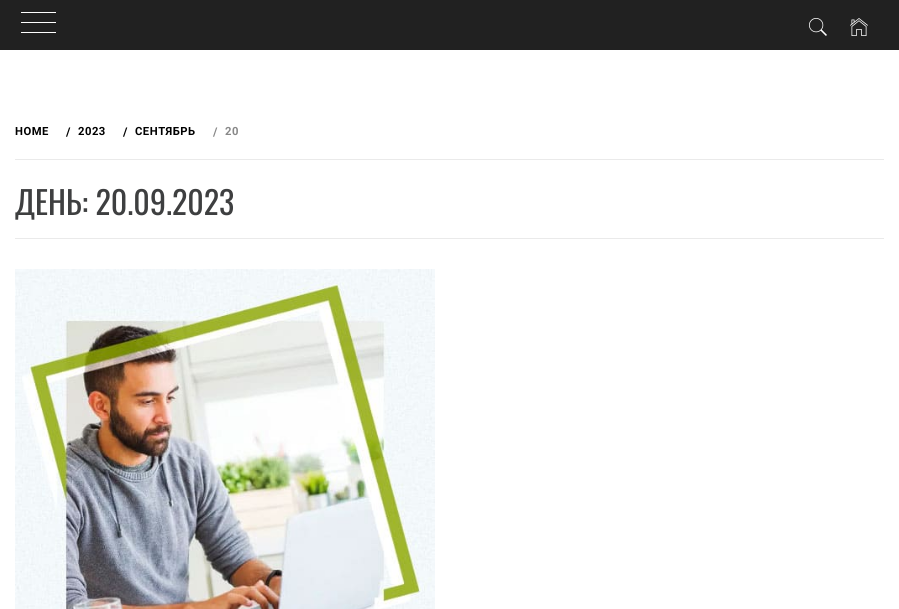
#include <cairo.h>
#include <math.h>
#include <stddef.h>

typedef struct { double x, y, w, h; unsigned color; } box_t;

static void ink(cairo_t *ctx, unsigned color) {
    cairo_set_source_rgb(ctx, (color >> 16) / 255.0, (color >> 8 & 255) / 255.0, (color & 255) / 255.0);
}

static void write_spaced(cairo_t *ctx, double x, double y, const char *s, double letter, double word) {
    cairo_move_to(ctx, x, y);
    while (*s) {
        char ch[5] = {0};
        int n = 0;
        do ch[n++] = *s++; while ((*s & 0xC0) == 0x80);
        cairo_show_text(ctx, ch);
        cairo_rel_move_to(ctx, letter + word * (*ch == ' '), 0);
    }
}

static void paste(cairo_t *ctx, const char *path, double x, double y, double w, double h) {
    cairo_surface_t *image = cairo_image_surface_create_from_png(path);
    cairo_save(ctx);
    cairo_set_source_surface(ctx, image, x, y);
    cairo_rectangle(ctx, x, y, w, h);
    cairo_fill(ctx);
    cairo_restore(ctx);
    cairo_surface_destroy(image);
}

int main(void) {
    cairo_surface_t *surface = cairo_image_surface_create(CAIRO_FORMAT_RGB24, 899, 609);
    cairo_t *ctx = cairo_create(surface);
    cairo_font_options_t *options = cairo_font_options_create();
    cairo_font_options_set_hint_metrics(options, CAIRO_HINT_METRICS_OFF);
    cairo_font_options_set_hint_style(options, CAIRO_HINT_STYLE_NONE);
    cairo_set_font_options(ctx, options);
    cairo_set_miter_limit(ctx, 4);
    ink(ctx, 0xFFFFFF);
    cairo_paint(ctx);
    {
        static const box_t items[] = {
            {0, 0, 899, 50, 0x212121},
            {21, 12, 35, 1, 0xFFFFFF},
            {21, 22, 35, 1, 0xFFFFFF},
            {21, 32, 35, 1, 0xFFFFFF},
        };
        for (size_t i = 0; i < sizeof items / sizeof *items; i++) {
            ink(ctx, items[i].color);
            cairo_rectangle(ctx, items[i].x, items[i].y, items[i].w, items[i].h);
            cairo_fill(ctx);
        }
    }
    paste(ctx, "media/1.png", 809, 18, 18, 18);
    paste(ctx, "media/2.png", 850, 18, 18, 18);
    ink(ctx, 0xEAEAEA);
    cairo_rectangle(ctx, 15, 238, 869, 1);
    cairo_fill(ctx);
    cairo_rectangle(ctx, 15, 159, 869, 1);
    cairo_fill(ctx);
    cairo_select_font_face(ctx, "Roboto", CAIRO_FONT_SLANT_NORMAL, CAIRO_FONT_WEIGHT_BOLD);
    cairo_set_font_size(ctx, 11.25);
    ink(ctx, 0x000000);
    write_spaced(ctx, 15, 135, "HOME", 0.5, 0);
    cairo_set_font_size(ctx, 12);
    write_spaced(ctx, 66, 136, "/", 0.5, 0);
    cairo_set_font_size(ctx, 11.25);
    write_spaced(ctx, 78, 135, "2023", 0.5, 0);
    cairo_set_font_size(ctx, 12);
    write_spaced(ctx, 123, 136, "/", 0.5, 0);
    cairo_set_font_size(ctx, 11.25);
    write_spaced(ctx, 135, 135, "СЕНТЯБРЬ", 0.5, 0);
    cairo_set_font_size(ctx, 12);
    ink(ctx, 0x888888);
    write_spaced(ctx, 213, 136, "/", 0.5, 0);
    cairo_set_font_size(ctx, 11.25);
    write_spaced(ctx, 225, 135, "20", 0.5, 0);
    cairo_select_font_face(ctx, "Oswald", CAIRO_FONT_SLANT_NORMAL, CAIRO_FONT_WEIGHT_NORMAL);
    cairo_set_font_size(ctx, 32);
    ink(ctx, 0x3E3F40);
    cairo_move_to(ctx, 15, 215);
    cairo_show_text(ctx, "ДЕНЬ: 20.09.2023");
    paste(ctx, "media/3.png", 15, 269, 420, 340);
    cairo_surface_write_to_png(surface, "image.png");
    cairo_font_options_destroy(options);
    cairo_destroy(ctx);
    cairo_surface_destroy(surface);
    return 0;
}
